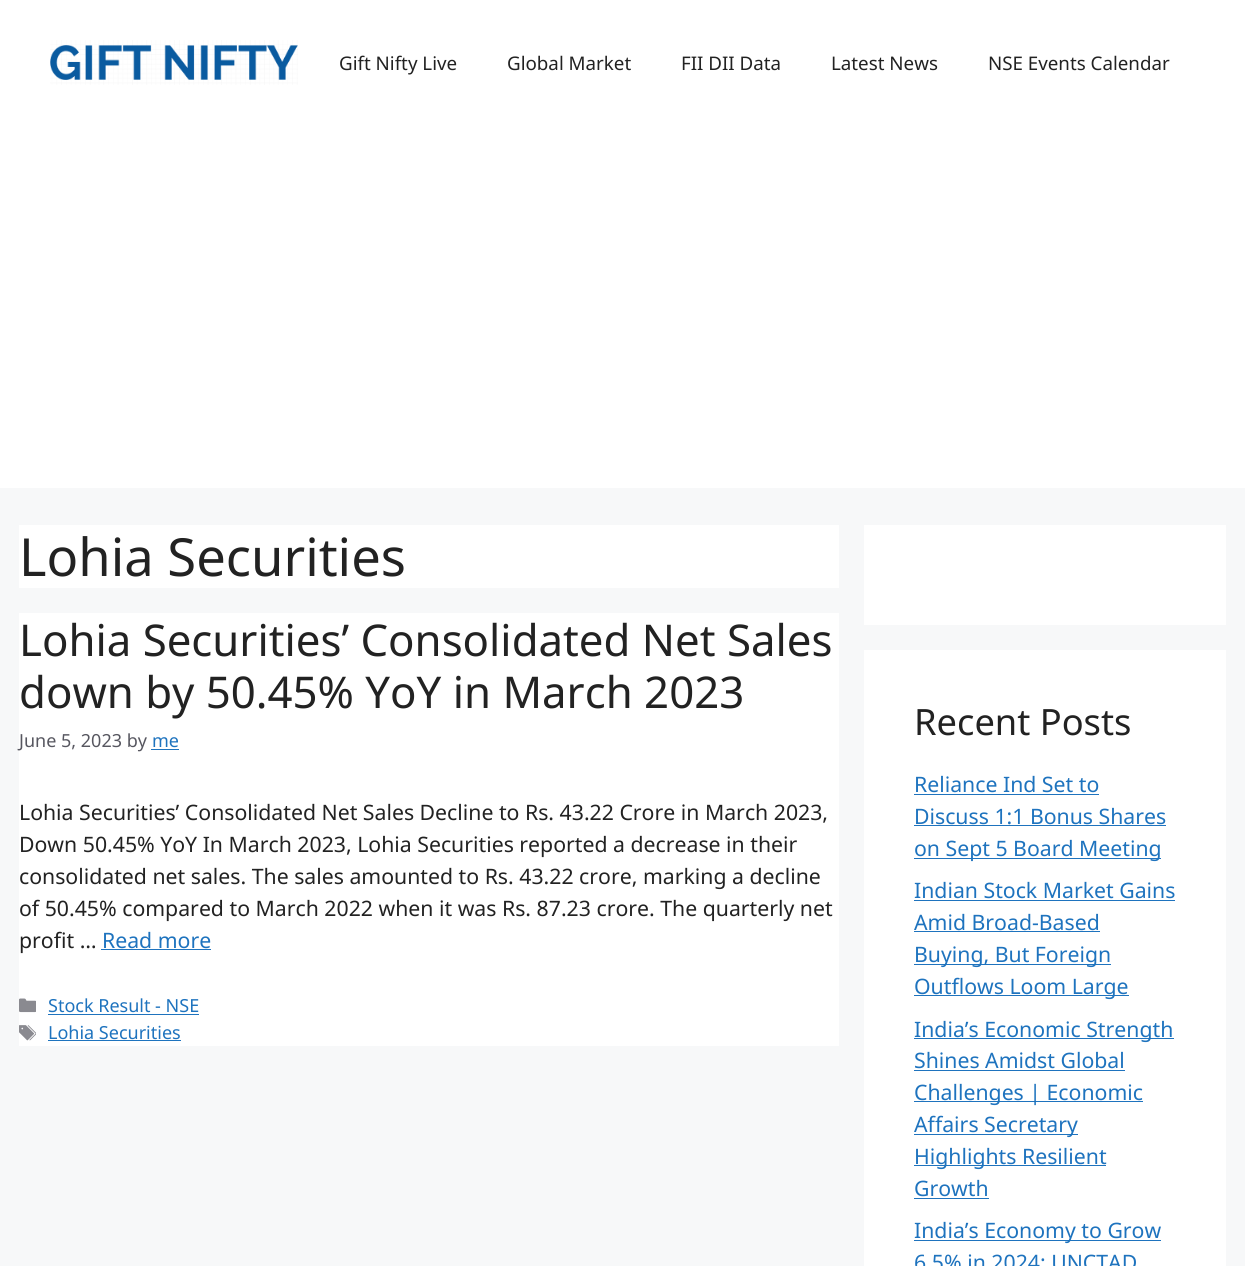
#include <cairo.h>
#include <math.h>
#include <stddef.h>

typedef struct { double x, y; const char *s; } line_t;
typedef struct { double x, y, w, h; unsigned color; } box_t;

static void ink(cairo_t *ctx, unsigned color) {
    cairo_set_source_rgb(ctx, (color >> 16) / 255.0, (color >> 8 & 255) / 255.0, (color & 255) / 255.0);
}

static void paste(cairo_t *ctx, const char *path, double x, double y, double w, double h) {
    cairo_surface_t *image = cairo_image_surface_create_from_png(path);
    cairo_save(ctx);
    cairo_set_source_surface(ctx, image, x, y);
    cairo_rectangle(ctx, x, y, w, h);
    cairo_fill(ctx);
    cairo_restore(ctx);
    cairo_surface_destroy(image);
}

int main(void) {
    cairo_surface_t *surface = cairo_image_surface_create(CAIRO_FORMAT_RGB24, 1245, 1266);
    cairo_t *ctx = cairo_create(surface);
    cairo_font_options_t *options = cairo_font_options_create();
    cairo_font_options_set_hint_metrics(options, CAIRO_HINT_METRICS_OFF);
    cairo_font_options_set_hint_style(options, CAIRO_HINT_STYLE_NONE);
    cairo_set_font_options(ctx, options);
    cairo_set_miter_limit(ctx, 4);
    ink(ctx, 0xF7F8F9);
    cairo_paint(ctx);
    ink(ctx, 0xFFFFFF);
    cairo_rectangle(ctx, 0, 0, 1245, 488);
    cairo_fill(ctx);
    paste(ctx, "media/1.png", 50, 40, 248, 45);
    cairo_select_font_face(ctx, "Noto Sans", CAIRO_FONT_SLANT_NORMAL, CAIRO_FONT_WEIGHT_NORMAL);
    cairo_set_font_size(ctx, 18.75);
    ink(ctx, 0x222222);
    {
        static const line_t items[] = {
            {339, 70, "Gift Nifty Live"},
            {507, 70, "Global Market"},
            {681, 70, "FII DII Data"},
            {831, 70, "Latest News"},
            {988, 70, "NSE Events Calendar"},
        };
        for (size_t i = 0; i < sizeof items / sizeof *items; i++) {
            cairo_move_to(ctx, items[i].x, items[i].y);
            cairo_show_text(ctx, items[i].s);
        }
    }
    ink(ctx, 0xFFFFFF);
    cairo_rectangle(ctx, 19, 525, 820, 63);
    cairo_fill(ctx);
    cairo_set_font_size(ctx, 52.5);
    ink(ctx, 0x222222);
    cairo_move_to(ctx, 19, 576);
    cairo_show_text(ctx, "Lohia Securities");
    ink(ctx, 0xFFFFFF);
    cairo_rectangle(ctx, 19, 613, 820, 433);
    cairo_fill(ctx);
    cairo_set_font_size(ctx, 43.75);
    ink(ctx, 0x222222);
    cairo_move_to(ctx, 19, 656);
    cairo_show_text(ctx, "Lohia Securities’ Consolidated Net Sales");
    cairo_move_to(ctx, 19, 708);
    cairo_show_text(ctx, "down by 50.45% YoY in March 2023");
    cairo_set_font_size(ctx, 18);
    ink(ctx, 0x575760);
    cairo_move_to(ctx, 19, 747);
    cairo_show_text(ctx, "June 5, 2023 by");
    ink(ctx, 0x1E73BE);
    cairo_move_to(ctx, 152, 747);
    cairo_show_text(ctx, "me");
    cairo_rectangle(ctx, 151, 749, 28, 1);
    cairo_fill(ctx);
    cairo_set_font_size(ctx, 21.25);
    ink(ctx, 0x222222);
    {
        static const line_t items[] = {
            {19, 820, "Lohia Securities’ Consolidated Net Sales Decline to Rs. 43.22 Crore in March 2023,"},
            {19, 852, "Down 50.45% YoY In March 2023, Lohia Securities reported a decrease in their"},
            {19, 884, "consolidated net sales. The sales amounted to Rs. 43.22 crore, marking a decline"},
            {19, 916, "of 50.45% compared to March 2022 when it was Rs. 87.23 crore. The quarterly net"},
            {19, 948, "profit …"},
        };
        for (size_t i = 0; i < sizeof items / sizeof *items; i++) {
            cairo_move_to(ctx, items[i].x, items[i].y);
            cairo_show_text(ctx, items[i].s);
        }
    }
    ink(ctx, 0x1E73BE);
    cairo_move_to(ctx, 102, 948);
    cairo_show_text(ctx, "Read more");
    cairo_rectangle(ctx, 101, 949, 110, 1);
    cairo_fill(ctx);
    paste(ctx, "media/2.png", 19, 998, 17, 15);
    cairo_set_font_size(ctx, 18);
    cairo_move_to(ctx, 48, 1012);
    cairo_show_text(ctx, "Stock Result - NSE");
    cairo_rectangle(ctx, 48, 1014, 151, 1);
    cairo_fill(ctx);
    paste(ctx, "media/3.png", 19, 1025, 17, 16);
    cairo_move_to(ctx, 48, 1039);
    cairo_show_text(ctx, "Lohia Securities");
    {
        static const box_t items[] = {
            {48, 1040, 133, 1, 0x1E73BE},
            {864, 525, 362, 100, 0xFFFFFF},
            {864, 650, 362, 616, 0xFFFFFF},
        };
        for (size_t i = 0; i < sizeof items / sizeof *items; i++) {
            ink(ctx, items[i].color);
            cairo_rectangle(ctx, items[i].x, items[i].y, items[i].w, items[i].h);
            cairo_fill(ctx);
        }
    }
    cairo_set_font_size(ctx, 36.25);
    ink(ctx, 0x222222);
    cairo_move_to(ctx, 914, 735);
    cairo_show_text(ctx, "Recent Posts");
    cairo_set_font_size(ctx, 21.25);
    ink(ctx, 0x1E73BE);
    cairo_move_to(ctx, 914, 792);
    cairo_show_text(ctx, "Reliance Ind Set to");
    cairo_rectangle(ctx, 914, 794, 185, 1);
    cairo_fill(ctx);
    cairo_move_to(ctx, 914, 824);
    cairo_show_text(ctx, "Discuss 1:1 Bonus Shares");
    cairo_rectangle(ctx, 914, 825, 252, 1);
    cairo_fill(ctx);
    cairo_rectangle(ctx, 914, 858, 247, 1);
    cairo_fill(ctx);
    cairo_move_to(ctx, 914, 856);
    cairo_show_text(ctx, "on Sept 5 Board Meeting");
    cairo_move_to(ctx, 914, 898);
    cairo_show_text(ctx, "Indian Stock Market Gains");
    cairo_rectangle(ctx, 914, 900, 261, 1);
    cairo_fill(ctx);
    cairo_move_to(ctx, 914, 930);
    cairo_show_text(ctx, "Amid Broad-Based");
    cairo_rectangle(ctx, 914, 931, 186, 1);
    cairo_fill(ctx);
    cairo_rectangle(ctx, 914, 964, 197, 1);
    cairo_fill(ctx);
    cairo_move_to(ctx, 914, 962);
    cairo_show_text(ctx, "Buying, But Foreign");
    cairo_rectangle(ctx, 914, 995, 215, 1);
    cairo_fill(ctx);
    cairo_move_to(ctx, 914, 994);
    cairo_show_text(ctx, "Outflows Loom Large");
    cairo_rectangle(ctx, 914, 1038, 260, 1);
    cairo_fill(ctx);
    cairo_move_to(ctx, 914, 1037);
    cairo_show_text(ctx, "India’s Economic Strength");
    cairo_move_to(ctx, 914, 1068);
    cairo_show_text(ctx, "Shines Amidst Global");
    cairo_rectangle(ctx, 914, 1070, 211, 1);
    cairo_fill(ctx);
    cairo_rectangle(ctx, 914, 1101, 229, 1);
    cairo_fill(ctx);
    cairo_move_to(ctx, 914, 1100);
    cairo_show_text(ctx, "Challenges | Economic");
    cairo_rectangle(ctx, 914, 1134, 164, 1);
    cairo_fill(ctx);
    cairo_move_to(ctx, 914, 1132);
    cairo_show_text(ctx, "Affairs Secretary");
    cairo_rectangle(ctx, 914, 1165, 192, 1);
    cairo_fill(ctx);
    cairo_move_to(ctx, 914, 1164);
    cairo_show_text(ctx, "Highlights Resilient");
    cairo_move_to(ctx, 914, 1196);
    cairo_show_text(ctx, "Growth");
    cairo_rectangle(ctx, 914, 1198, 75, 1);
    cairo_fill(ctx);
    cairo_rectangle(ctx, 914, 1240, 247, 1);
    cairo_fill(ctx);
    cairo_move_to(ctx, 914, 1238);
    cairo_show_text(ctx, "India’s Economy to Grow");
    cairo_move_to(ctx, 914, 1270);
    cairo_show_text(ctx, "6.5% in 2024: UNCTAD");
    cairo_surface_write_to_png(surface, "image.png");
    cairo_font_options_destroy(options);
    cairo_destroy(ctx);
    cairo_surface_destroy(surface);
    return 0;
}
